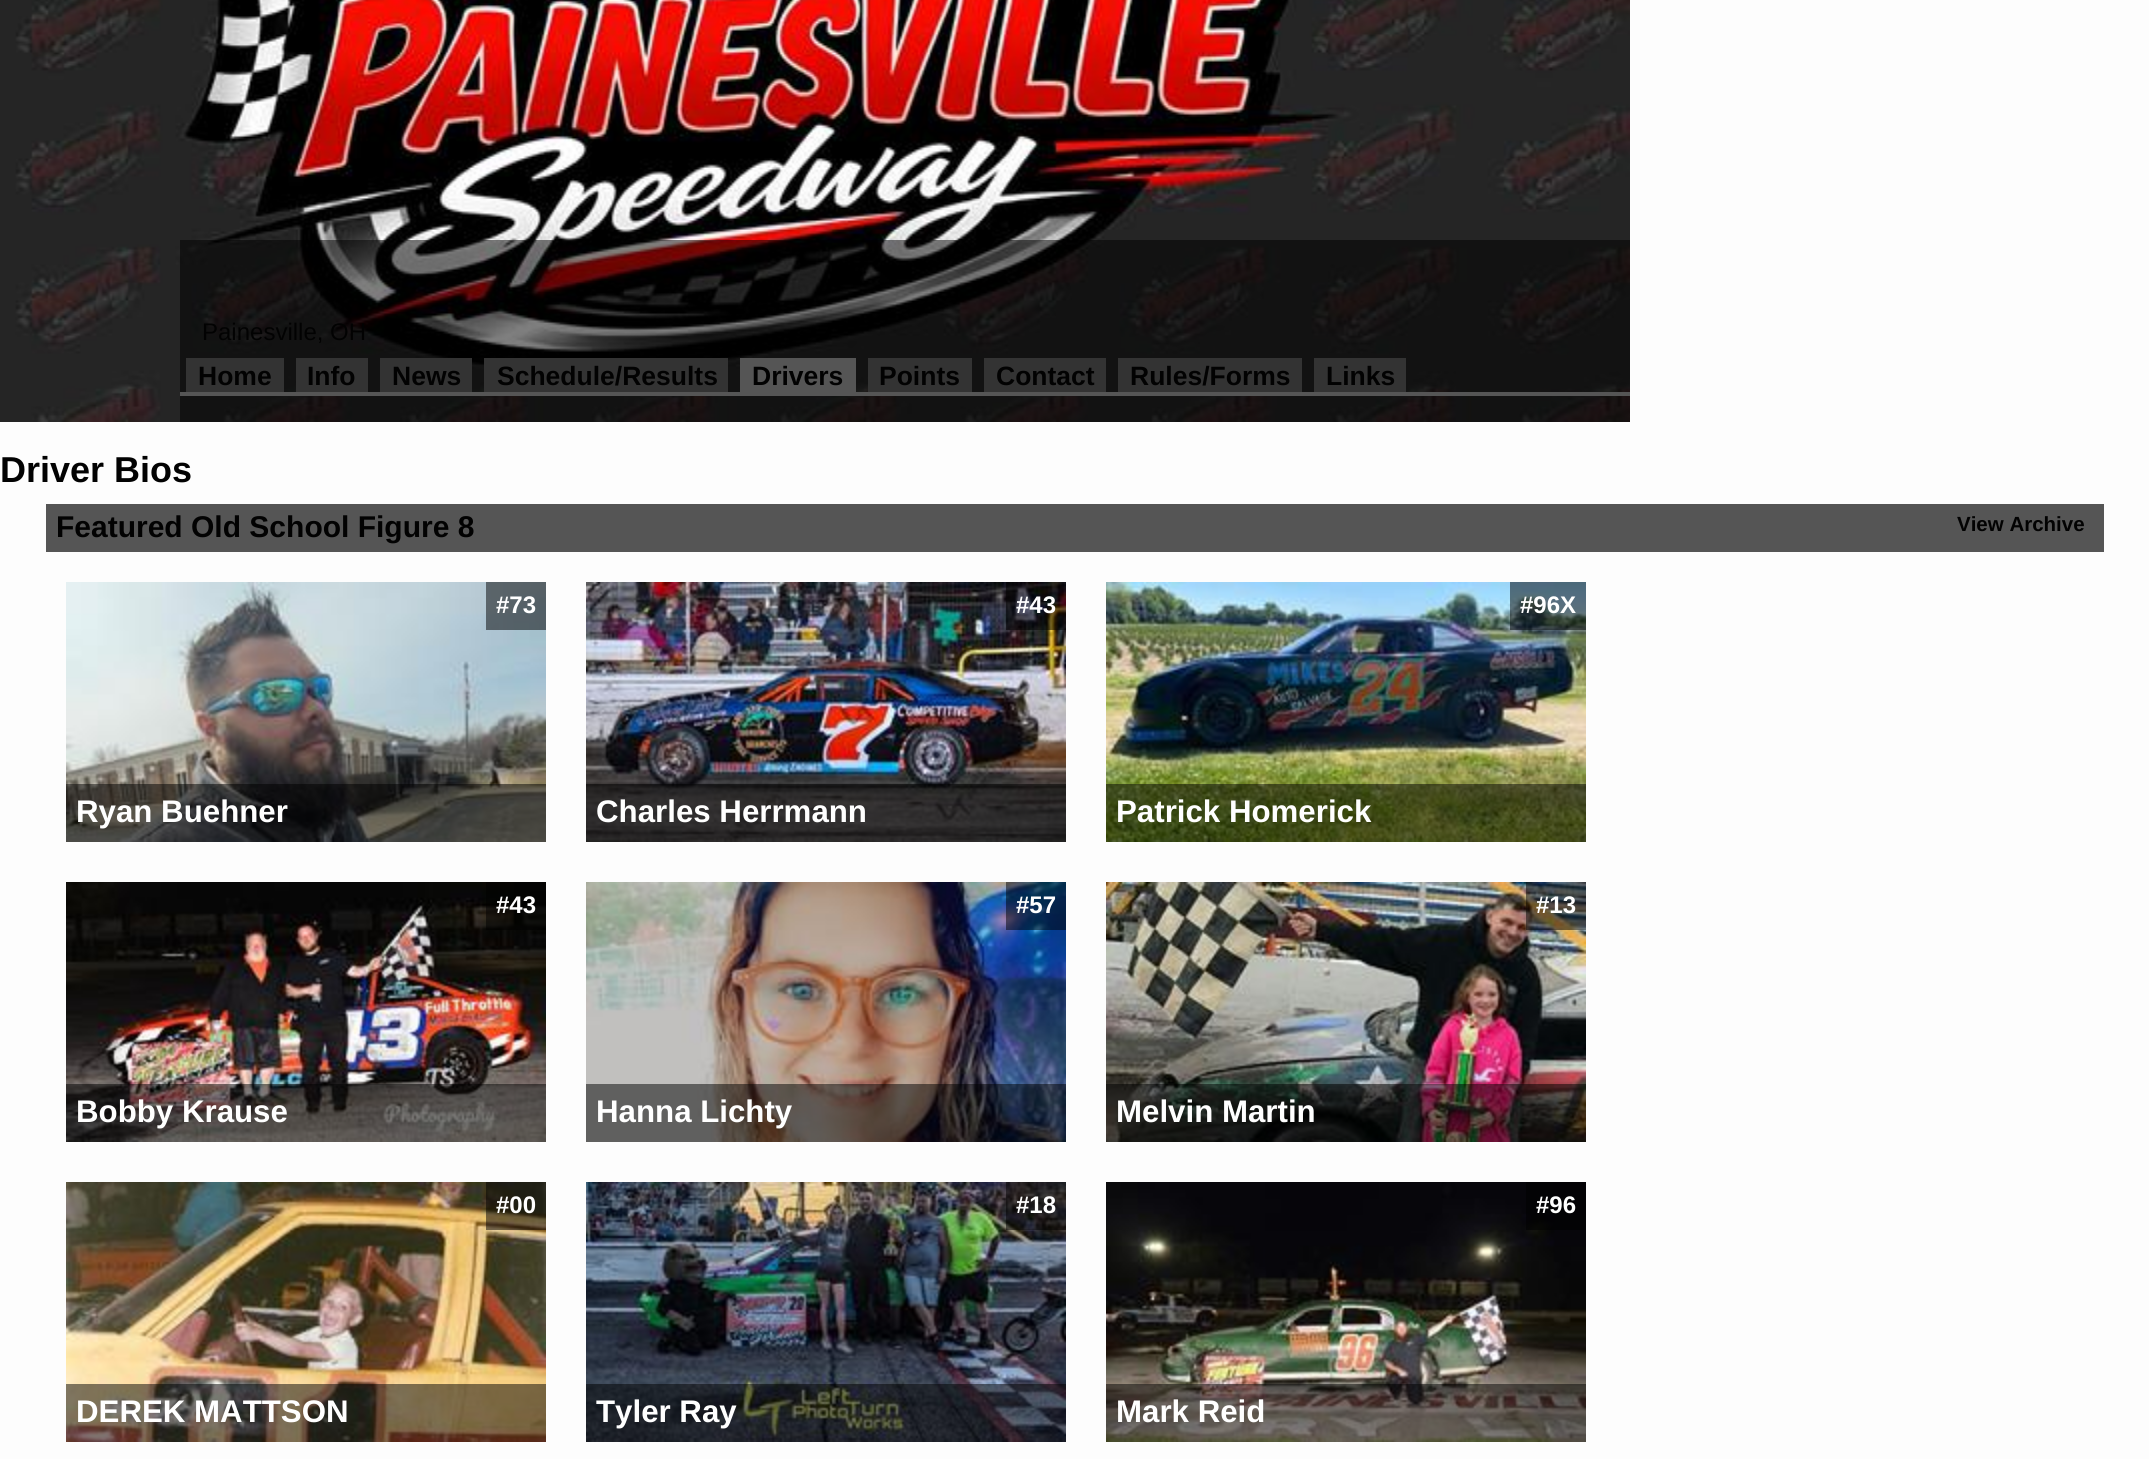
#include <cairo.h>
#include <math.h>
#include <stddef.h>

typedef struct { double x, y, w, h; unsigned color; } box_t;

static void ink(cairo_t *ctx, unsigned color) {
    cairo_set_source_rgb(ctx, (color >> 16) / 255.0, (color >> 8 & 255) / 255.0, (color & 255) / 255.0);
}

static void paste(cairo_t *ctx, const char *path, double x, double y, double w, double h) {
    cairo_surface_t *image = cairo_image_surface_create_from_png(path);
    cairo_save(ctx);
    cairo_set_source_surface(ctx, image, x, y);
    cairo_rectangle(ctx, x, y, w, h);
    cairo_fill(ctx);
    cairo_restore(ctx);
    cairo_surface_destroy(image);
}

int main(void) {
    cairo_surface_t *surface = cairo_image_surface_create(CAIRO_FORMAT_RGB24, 2149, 1459);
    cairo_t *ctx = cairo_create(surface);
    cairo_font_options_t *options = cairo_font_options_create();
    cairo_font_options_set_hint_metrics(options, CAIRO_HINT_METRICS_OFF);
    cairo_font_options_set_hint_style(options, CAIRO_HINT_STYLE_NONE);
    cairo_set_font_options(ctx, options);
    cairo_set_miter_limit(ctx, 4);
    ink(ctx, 0xFDFDFD);
    cairo_paint(ctx);
    paste(ctx, "media/1.png", 0, 0, 1630, 422);
    cairo_set_source_rgba(ctx, 0, 0, 0, 0.5);
    cairo_rectangle(ctx, 180, 240, 1450, 182);
    cairo_fill(ctx);
    cairo_select_font_face(ctx, "Liberation Sans", CAIRO_FONT_SLANT_NORMAL, CAIRO_FONT_WEIGHT_NORMAL);
    cairo_set_font_size(ctx, 24);
    ink(ctx, 0x020202);
    cairo_move_to(ctx, 202, 340);
    cairo_show_text(ctx, "Painesville, OH");
    {
        static const box_t items[] = {
            {180, 392, 1450, 4, 0x555555},
            {188, 360, 94, 32, 0x333333},
            {186, 358, 98, 2, 0x333333},
            {282, 358, 2, 34, 0x333333},
            {186, 358, 2, 34, 0x333333},
        };
        for (size_t i = 0; i < sizeof items / sizeof *items; i++) {
            ink(ctx, items[i].color);
            cairo_rectangle(ctx, items[i].x, items[i].y, items[i].w, items[i].h);
            cairo_fill(ctx);
        }
    }
    cairo_select_font_face(ctx, "Liberation Sans", CAIRO_FONT_SLANT_NORMAL, CAIRO_FONT_WEIGHT_BOLD);
    cairo_set_font_size(ctx, 26.5);
    ink(ctx, 0x020202);
    cairo_move_to(ctx, 198, 385);
    cairo_show_text(ctx, "Home");
    {
        static const box_t items[] = {
            {298, 360, 68, 32, 0x333333},
            {296, 358, 72, 2, 0x333333},
            {366, 358, 2, 34, 0x333333},
            {296, 358, 2, 34, 0x333333},
        };
        for (size_t i = 0; i < sizeof items / sizeof *items; i++) {
            ink(ctx, items[i].color);
            cairo_rectangle(ctx, items[i].x, items[i].y, items[i].w, items[i].h);
            cairo_fill(ctx);
        }
    }
    ink(ctx, 0x020202);
    cairo_move_to(ctx, 307, 385);
    cairo_show_text(ctx, "Info");
    {
        static const box_t items[] = {
            {382, 360, 88, 32, 0x333333},
            {380, 358, 92, 2, 0x333333},
            {470, 358, 2, 34, 0x333333},
            {380, 358, 2, 34, 0x333333},
        };
        for (size_t i = 0; i < sizeof items / sizeof *items; i++) {
            ink(ctx, items[i].color);
            cairo_rectangle(ctx, items[i].x, items[i].y, items[i].w, items[i].h);
            cairo_fill(ctx);
        }
    }
    ink(ctx, 0x020202);
    cairo_move_to(ctx, 392, 385);
    cairo_show_text(ctx, "News");
    {
        static const box_t items[] = {
            {486, 360, 240, 32, 0x333333},
            {484, 358, 244, 2, 0x333333},
            {726, 358, 2, 34, 0x333333},
            {484, 358, 2, 34, 0x333333},
        };
        for (size_t i = 0; i < sizeof items / sizeof *items; i++) {
            ink(ctx, items[i].color);
            cairo_rectangle(ctx, items[i].x, items[i].y, items[i].w, items[i].h);
            cairo_fill(ctx);
        }
    }
    ink(ctx, 0x020202);
    cairo_move_to(ctx, 497, 385);
    cairo_show_text(ctx, "Schedule/Results");
    {
        static const box_t items[] = {
            {742, 360, 112, 32, 0x555555},
            {740, 358, 116, 2, 0x555555},
            {854, 358, 2, 34, 0x555555},
            {740, 358, 2, 34, 0x555555},
        };
        for (size_t i = 0; i < sizeof items / sizeof *items; i++) {
            ink(ctx, items[i].color);
            cairo_rectangle(ctx, items[i].x, items[i].y, items[i].w, items[i].h);
            cairo_fill(ctx);
        }
    }
    ink(ctx, 0x020202);
    cairo_move_to(ctx, 752, 385);
    cairo_show_text(ctx, "Drivers");
    {
        static const box_t items[] = {
            {870, 360, 100, 32, 0x333333},
            {868, 358, 104, 2, 0x333333},
            {970, 358, 2, 34, 0x333333},
            {868, 358, 2, 34, 0x333333},
        };
        for (size_t i = 0; i < sizeof items / sizeof *items; i++) {
            ink(ctx, items[i].color);
            cairo_rectangle(ctx, items[i].x, items[i].y, items[i].w, items[i].h);
            cairo_fill(ctx);
        }
    }
    ink(ctx, 0x020202);
    cairo_move_to(ctx, 879, 385);
    cairo_show_text(ctx, "Points");
    {
        static const box_t items[] = {
            {986, 360, 118, 32, 0x333333},
            {984, 358, 122, 2, 0x333333},
            {1104, 358, 2, 34, 0x333333},
            {984, 358, 2, 34, 0x333333},
        };
        for (size_t i = 0; i < sizeof items / sizeof *items; i++) {
            ink(ctx, items[i].color);
            cairo_rectangle(ctx, items[i].x, items[i].y, items[i].w, items[i].h);
            cairo_fill(ctx);
        }
    }
    ink(ctx, 0x020202);
    cairo_move_to(ctx, 996, 385);
    cairo_show_text(ctx, "Contact");
    {
        static const box_t items[] = {
            {1120, 360, 180, 32, 0x333333},
            {1118, 358, 184, 2, 0x333333},
            {1300, 358, 2, 34, 0x333333},
            {1118, 358, 2, 34, 0x333333},
        };
        for (size_t i = 0; i < sizeof items / sizeof *items; i++) {
            ink(ctx, items[i].color);
            cairo_rectangle(ctx, items[i].x, items[i].y, items[i].w, items[i].h);
            cairo_fill(ctx);
        }
    }
    ink(ctx, 0x020202);
    cairo_move_to(ctx, 1130, 385);
    cairo_show_text(ctx, "Rules/Forms");
    {
        static const box_t items[] = {
            {1316, 360, 88, 32, 0x333333},
            {1314, 358, 92, 2, 0x333333},
            {1404, 358, 2, 34, 0x333333},
            {1314, 358, 2, 34, 0x333333},
        };
        for (size_t i = 0; i < sizeof items / sizeof *items; i++) {
            ink(ctx, items[i].color);
            cairo_rectangle(ctx, items[i].x, items[i].y, items[i].w, items[i].h);
            cairo_fill(ctx);
        }
    }
    ink(ctx, 0x020202);
    cairo_move_to(ctx, 1326, 385);
    cairo_show_text(ctx, "Links");
    cairo_set_font_size(ctx, 36);
    cairo_move_to(ctx, 0, 482);
    cairo_show_text(ctx, "Driver Bios");
    ink(ctx, 0x555555);
    cairo_rectangle(ctx, 46, 504, 2058, 48);
    cairo_fill(ctx);
    cairo_set_font_size(ctx, 30);
    ink(ctx, 0x020202);
    cairo_move_to(ctx, 56, 537);
    cairo_show_text(ctx, "Featured Old School Figure 8");
    cairo_set_font_size(ctx, 20.5);
    cairo_move_to(ctx, 1957, 531);
    cairo_show_text(ctx, "View Archive");
    paste(ctx, "media/2.png", 66, 582, 480, 260);
    cairo_set_source_rgba(ctx, 0, 0, 0, 0.5);
    cairo_rectangle(ctx, 486, 582, 60, 48);
    cairo_fill(ctx);
    cairo_set_font_size(ctx, 24);
    ink(ctx, 0xFFFFFF);
    cairo_move_to(ctx, 496, 613);
    cairo_show_text(ctx, "#73");
    cairo_set_source_rgba(ctx, 0, 0, 0, 0.5);
    cairo_rectangle(ctx, 66, 784, 480, 58);
    cairo_fill(ctx);
    cairo_set_font_size(ctx, 31.25);
    ink(ctx, 0xFFFFFF);
    cairo_move_to(ctx, 76, 822);
    cairo_show_text(ctx, "Ryan Buehner");
    paste(ctx, "media/3.png", 586, 582, 480, 260);
    cairo_set_source_rgba(ctx, 0, 0, 0, 0.5);
    cairo_rectangle(ctx, 1006, 582, 60, 48);
    cairo_fill(ctx);
    cairo_set_font_size(ctx, 24);
    ink(ctx, 0xFFFFFF);
    cairo_move_to(ctx, 1016, 613);
    cairo_show_text(ctx, "#43");
    cairo_set_source_rgba(ctx, 0, 0, 0, 0.5);
    cairo_rectangle(ctx, 586, 784, 480, 58);
    cairo_fill(ctx);
    cairo_set_font_size(ctx, 31.25);
    ink(ctx, 0xFFFFFF);
    cairo_move_to(ctx, 596, 822);
    cairo_show_text(ctx, "Charles Herrmann");
    paste(ctx, "media/4.png", 1106, 582, 480, 260);
    cairo_set_source_rgba(ctx, 0, 0, 0, 0.5);
    cairo_rectangle(ctx, 1510, 582, 76, 48);
    cairo_fill(ctx);
    cairo_set_font_size(ctx, 24);
    ink(ctx, 0xFFFFFF);
    cairo_move_to(ctx, 1520, 613);
    cairo_show_text(ctx, "#96X");
    cairo_set_source_rgba(ctx, 0, 0, 0, 0.5);
    cairo_rectangle(ctx, 1106, 784, 480, 58);
    cairo_fill(ctx);
    cairo_set_font_size(ctx, 31.25);
    ink(ctx, 0xFFFFFF);
    cairo_move_to(ctx, 1116, 822);
    cairo_show_text(ctx, "Patrick Homerick");
    paste(ctx, "media/5.png", 66, 882, 480, 260);
    cairo_set_source_rgba(ctx, 0, 0, 0, 0.5);
    cairo_rectangle(ctx, 486, 882, 60, 48);
    cairo_fill(ctx);
    cairo_set_font_size(ctx, 24);
    ink(ctx, 0xFFFFFF);
    cairo_move_to(ctx, 496, 913);
    cairo_show_text(ctx, "#43");
    cairo_set_source_rgba(ctx, 0, 0, 0, 0.5);
    cairo_rectangle(ctx, 66, 1084, 480, 58);
    cairo_fill(ctx);
    cairo_set_font_size(ctx, 31.25);
    ink(ctx, 0xFFFFFF);
    cairo_move_to(ctx, 76, 1122);
    cairo_show_text(ctx, "Bobby Krause");
    paste(ctx, "media/6.png", 586, 882, 480, 260);
    cairo_set_source_rgba(ctx, 0, 0, 0, 0.5);
    cairo_rectangle(ctx, 1006, 882, 60, 48);
    cairo_fill(ctx);
    cairo_set_font_size(ctx, 24);
    ink(ctx, 0xFFFFFF);
    cairo_move_to(ctx, 1016, 913);
    cairo_show_text(ctx, "#57");
    cairo_set_source_rgba(ctx, 0, 0, 0, 0.5);
    cairo_rectangle(ctx, 586, 1084, 480, 58);
    cairo_fill(ctx);
    cairo_set_font_size(ctx, 31.25);
    ink(ctx, 0xFFFFFF);
    cairo_move_to(ctx, 596, 1122);
    cairo_show_text(ctx, "Hanna Lichty");
    paste(ctx, "media/7.png", 1106, 882, 480, 260);
    cairo_set_source_rgba(ctx, 0, 0, 0, 0.5);
    cairo_rectangle(ctx, 1526, 882, 60, 48);
    cairo_fill(ctx);
    cairo_set_font_size(ctx, 24);
    ink(ctx, 0xFFFFFF);
    cairo_move_to(ctx, 1536, 913);
    cairo_show_text(ctx, "#13");
    cairo_set_source_rgba(ctx, 0, 0, 0, 0.5);
    cairo_rectangle(ctx, 1106, 1084, 480, 58);
    cairo_fill(ctx);
    cairo_set_font_size(ctx, 31.25);
    ink(ctx, 0xFFFFFF);
    cairo_move_to(ctx, 1116, 1122);
    cairo_show_text(ctx, "Melvin Martin");
    paste(ctx, "media/8.png", 66, 1182, 480, 260);
    cairo_set_source_rgba(ctx, 0, 0, 0, 0.5);
    cairo_rectangle(ctx, 486, 1182, 60, 48);
    cairo_fill(ctx);
    cairo_set_font_size(ctx, 24);
    ink(ctx, 0xFFFFFF);
    cairo_move_to(ctx, 496, 1213);
    cairo_show_text(ctx, "#00");
    cairo_set_source_rgba(ctx, 0, 0, 0, 0.5);
    cairo_rectangle(ctx, 66, 1384, 480, 58);
    cairo_fill(ctx);
    cairo_set_font_size(ctx, 31.25);
    ink(ctx, 0xFFFFFF);
    cairo_move_to(ctx, 76, 1422);
    cairo_show_text(ctx, "DEREK MATTSON");
    paste(ctx, "media/9.png", 586, 1182, 480, 260);
    cairo_set_source_rgba(ctx, 0, 0, 0, 0.5);
    cairo_rectangle(ctx, 1006, 1182, 60, 48);
    cairo_fill(ctx);
    cairo_set_font_size(ctx, 24);
    ink(ctx, 0xFFFFFF);
    cairo_move_to(ctx, 1016, 1213);
    cairo_show_text(ctx, "#18");
    cairo_set_source_rgba(ctx, 0, 0, 0, 0.5);
    cairo_rectangle(ctx, 586, 1384, 480, 58);
    cairo_fill(ctx);
    cairo_set_font_size(ctx, 31.25);
    ink(ctx, 0xFFFFFF);
    cairo_move_to(ctx, 596, 1422);
    cairo_show_text(ctx, "Tyler Ray");
    paste(ctx, "media/10.png", 1106, 1182, 480, 260);
    cairo_set_source_rgba(ctx, 0, 0, 0, 0.5);
    cairo_rectangle(ctx, 1526, 1182, 60, 48);
    cairo_fill(ctx);
    cairo_set_font_size(ctx, 24);
    ink(ctx, 0xFFFFFF);
    cairo_move_to(ctx, 1536, 1213);
    cairo_show_text(ctx, "#96");
    cairo_set_source_rgba(ctx, 0, 0, 0, 0.5);
    cairo_rectangle(ctx, 1106, 1384, 480, 58);
    cairo_fill(ctx);
    cairo_set_font_size(ctx, 31.25);
    ink(ctx, 0xFFFFFF);
    cairo_move_to(ctx, 1116, 1422);
    cairo_show_text(ctx, "Mark Reid");
    cairo_surface_write_to_png(surface, "image.png");
    cairo_font_options_destroy(options);
    cairo_destroy(ctx);
    cairo_surface_destroy(surface);
    return 0;
}
